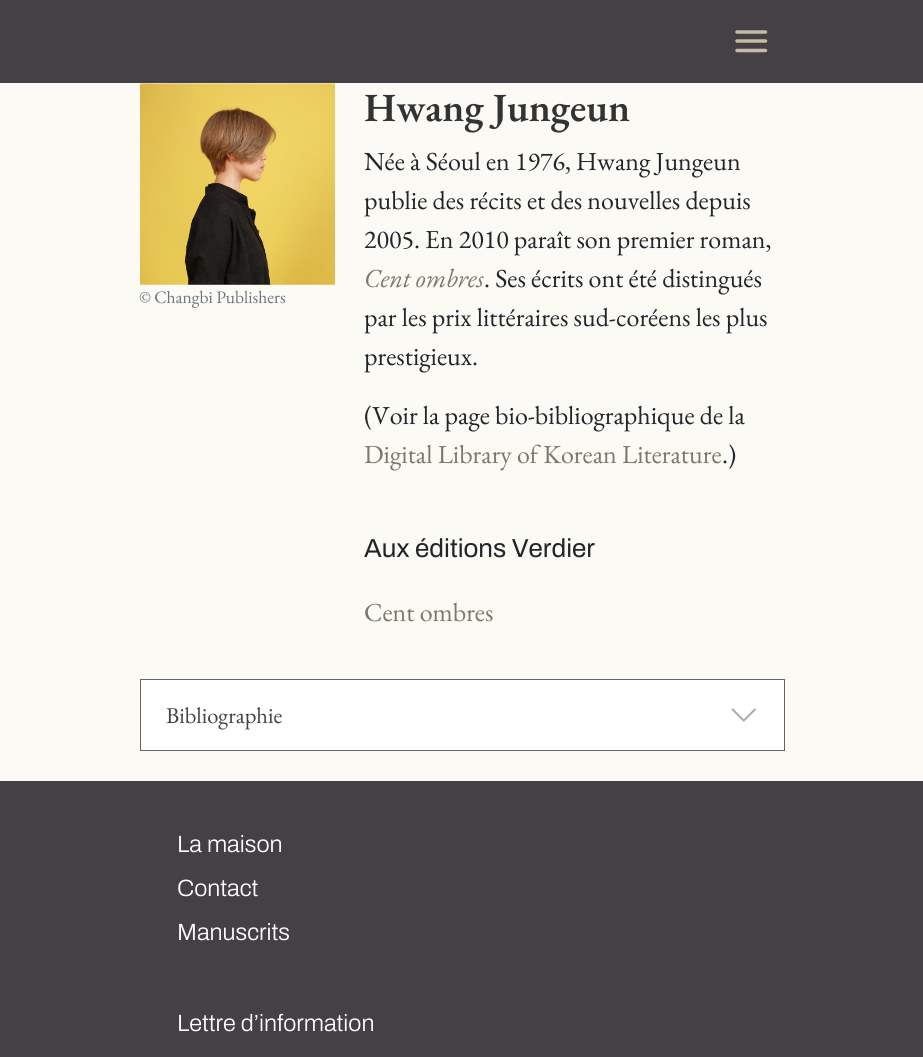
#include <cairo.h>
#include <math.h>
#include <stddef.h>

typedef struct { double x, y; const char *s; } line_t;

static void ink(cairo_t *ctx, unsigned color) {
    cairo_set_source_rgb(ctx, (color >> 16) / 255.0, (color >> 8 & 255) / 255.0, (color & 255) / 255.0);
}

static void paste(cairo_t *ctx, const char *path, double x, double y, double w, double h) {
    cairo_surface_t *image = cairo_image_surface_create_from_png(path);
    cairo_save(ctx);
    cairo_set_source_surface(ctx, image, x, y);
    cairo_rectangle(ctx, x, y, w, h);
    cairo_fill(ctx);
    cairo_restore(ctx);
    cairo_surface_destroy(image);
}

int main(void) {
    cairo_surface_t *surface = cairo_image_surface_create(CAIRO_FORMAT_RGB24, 923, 1057);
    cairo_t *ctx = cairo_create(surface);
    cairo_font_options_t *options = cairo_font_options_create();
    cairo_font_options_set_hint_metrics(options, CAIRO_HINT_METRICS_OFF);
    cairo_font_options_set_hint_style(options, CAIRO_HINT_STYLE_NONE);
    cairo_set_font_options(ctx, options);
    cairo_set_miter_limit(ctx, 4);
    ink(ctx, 0xFBFAF5);
    cairo_paint(ctx);
    ink(ctx, 0x444045);
    cairo_rectangle(ctx, 0, 0, 923, 83);
    cairo_fill(ctx);
    cairo_new_path(ctx);
    cairo_move_to(ctx, 737, 32);
    cairo_line_to(ctx, 765.5, 32);
    cairo_move_to(ctx, 737, 41);
    cairo_line_to(ctx, 765.5, 41);
    cairo_move_to(ctx, 737, 50.5);
    cairo_line_to(ctx, 765.5, 50.5);
    ink(ctx, 0xC5BCA6);
    cairo_set_line_width(ctx, 3.5);
    cairo_set_line_cap(ctx, CAIRO_LINE_CAP_ROUND);
    cairo_stroke(ctx);
    paste(ctx, "media/1.png", 140, 83, 195, 202);
    cairo_select_font_face(ctx, "EB Garamond", CAIRO_FONT_SLANT_NORMAL, CAIRO_FONT_WEIGHT_NORMAL);
    cairo_set_font_size(ctx, 17.5);
    ink(ctx, 0x6C757D);
    cairo_move_to(ctx, 139, 303);
    cairo_show_text(ctx, "© Changbi Publishers");
    cairo_select_font_face(ctx, "EB Garamond SemiBold", CAIRO_FONT_SLANT_NORMAL, CAIRO_FONT_WEIGHT_NORMAL);
    cairo_set_font_size(ctx, 40);
    ink(ctx, 0x333333);
    cairo_move_to(ctx, 364, 121);
    cairo_show_text(ctx, "Hwang Jungeun");
    cairo_select_font_face(ctx, "EB Garamond", CAIRO_FONT_SLANT_NORMAL, CAIRO_FONT_WEIGHT_NORMAL);
    cairo_set_font_size(ctx, 26);
    ink(ctx, 0x212529);
    {
        static const line_t items[] = {
            {364, 170, "Née à Séoul en 1976, Hwang Jungeun"},
            {364, 209, "publie des récits et des nouvelles depuis"},
            {364, 248, "2005. En 2010 paraît son premier roman,"},
        };
        for (size_t i = 0; i < sizeof items / sizeof *items; i++) {
            cairo_move_to(ctx, items[i].x, items[i].y);
            cairo_show_text(ctx, items[i].s);
        }
    }
    cairo_select_font_face(ctx, "EB Garamond", CAIRO_FONT_SLANT_ITALIC, CAIRO_FONT_WEIGHT_NORMAL);
    ink(ctx, 0x787967);
    cairo_move_to(ctx, 364, 287);
    cairo_show_text(ctx, "Cent ombres");
    cairo_select_font_face(ctx, "EB Garamond", CAIRO_FONT_SLANT_NORMAL, CAIRO_FONT_WEIGHT_NORMAL);
    ink(ctx, 0x212529);
    {
        static const line_t items[] = {
            {484, 287, ". Ses écrits ont été distingués"},
            {364, 326, "par les prix littéraires sud-coréens les plus"},
            {364, 365, "prestigieux."},
            {364, 424, "(Voir la page bio-bibliographique de la"},
        };
        for (size_t i = 0; i < sizeof items / sizeof *items; i++) {
            cairo_move_to(ctx, items[i].x, items[i].y);
            cairo_show_text(ctx, items[i].s);
        }
    }
    ink(ctx, 0x787967);
    cairo_move_to(ctx, 364, 463);
    cairo_show_text(ctx, "Digital Library of Korean Literature");
    ink(ctx, 0x212529);
    cairo_move_to(ctx, 722, 463);
    cairo_show_text(ctx, ".)");
    cairo_select_font_face(ctx, "Archivo", CAIRO_FONT_SLANT_NORMAL, CAIRO_FONT_WEIGHT_NORMAL);
    cairo_move_to(ctx, 364, 557);
    cairo_show_text(ctx, "Aux éditions Verdier");
    cairo_select_font_face(ctx, "EB Garamond", CAIRO_FONT_SLANT_NORMAL, CAIRO_FONT_WEIGHT_NORMAL);
    ink(ctx, 0x787967);
    cairo_move_to(ctx, 364, 621);
    cairo_show_text(ctx, "Cent ombres");
    ink(ctx, 0xFFFFFF);
    cairo_rectangle(ctx, 140.5, 679.5, 644, 71);
    cairo_fill_preserve(ctx);
    ink(ctx, 0x666560);
    cairo_set_line_width(ctx, 1);
    cairo_set_line_cap(ctx, CAIRO_LINE_CAP_BUTT);
    cairo_stroke(ctx);
    cairo_set_font_size(ctx, 22.5);
    ink(ctx, 0x444045);
    cairo_move_to(ctx, 166, 723);
    cairo_show_text(ctx, "Bibliographie");
    paste(ctx, "media/2.png", 731, 708, 25, 14);
    cairo_rectangle(ctx, 0, 781, 923, 276);
    cairo_fill(ctx);
    cairo_select_font_face(ctx, "Archivo Light", CAIRO_FONT_SLANT_NORMAL, CAIRO_FONT_WEIGHT_NORMAL);
    cairo_set_font_size(ctx, 23.5);
    ink(ctx, 0xFFFFFF);
    {
        static const line_t items[] = {
            {177, 852, "La maison"},
            {177, 896, "Contact"},
            {177, 940, "Manuscrits"},
            {177, 1031, "Lettre d’information"},
        };
        for (size_t i = 0; i < sizeof items / sizeof *items; i++) {
            cairo_move_to(ctx, items[i].x, items[i].y);
            cairo_show_text(ctx, items[i].s);
        }
    }
    cairo_surface_write_to_png(surface, "image.png");
    cairo_font_options_destroy(options);
    cairo_destroy(ctx);
    cairo_surface_destroy(surface);
    return 0;
}
